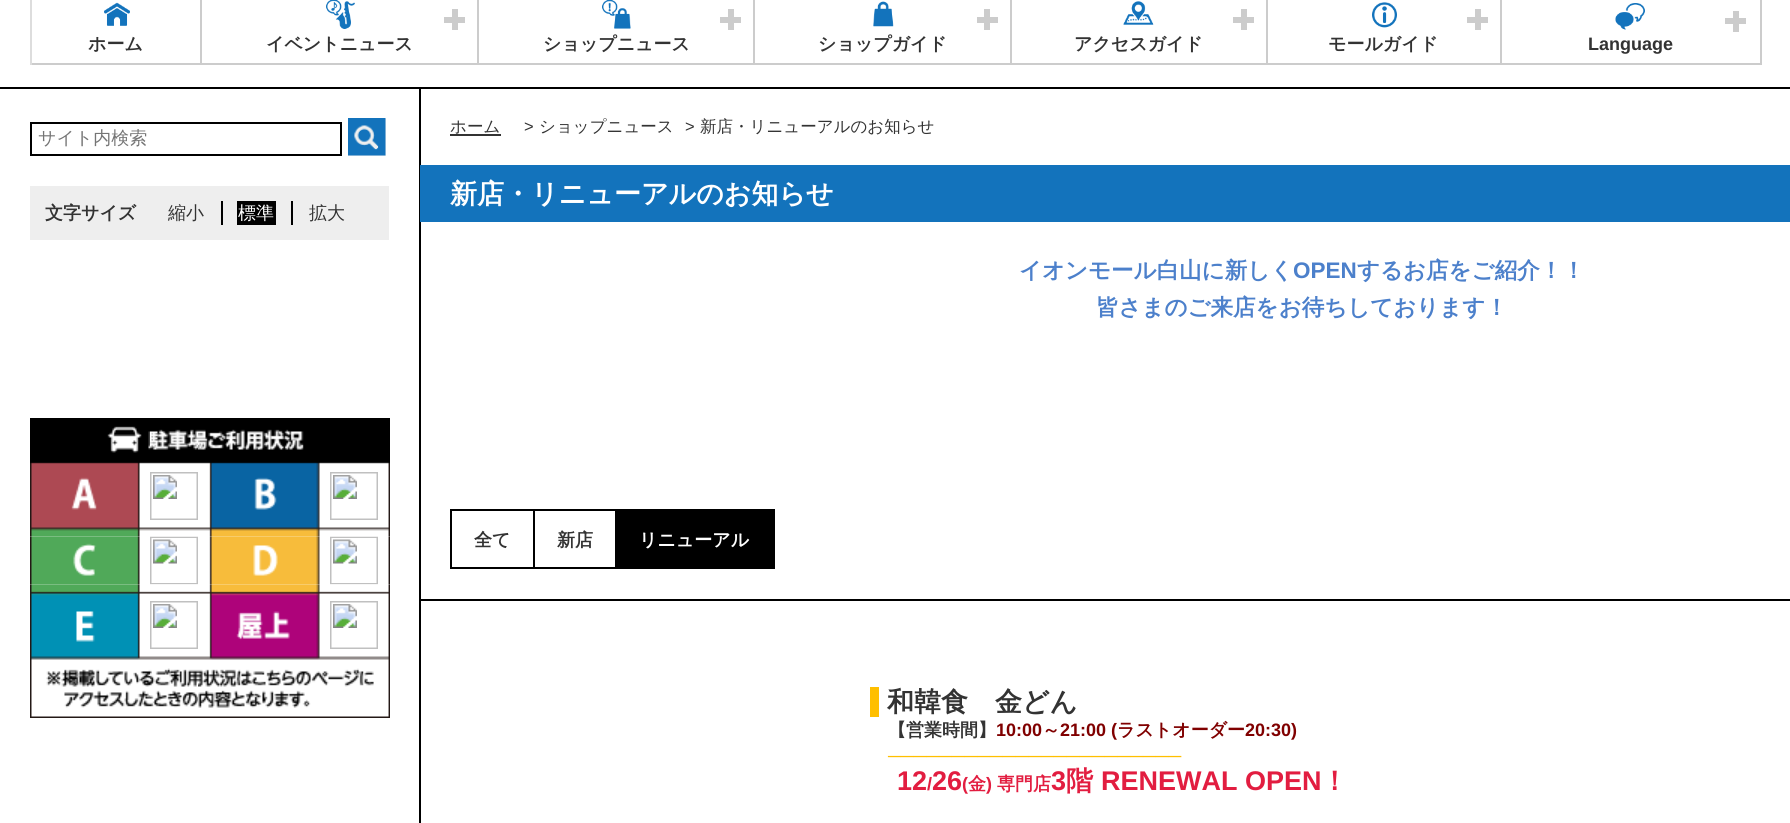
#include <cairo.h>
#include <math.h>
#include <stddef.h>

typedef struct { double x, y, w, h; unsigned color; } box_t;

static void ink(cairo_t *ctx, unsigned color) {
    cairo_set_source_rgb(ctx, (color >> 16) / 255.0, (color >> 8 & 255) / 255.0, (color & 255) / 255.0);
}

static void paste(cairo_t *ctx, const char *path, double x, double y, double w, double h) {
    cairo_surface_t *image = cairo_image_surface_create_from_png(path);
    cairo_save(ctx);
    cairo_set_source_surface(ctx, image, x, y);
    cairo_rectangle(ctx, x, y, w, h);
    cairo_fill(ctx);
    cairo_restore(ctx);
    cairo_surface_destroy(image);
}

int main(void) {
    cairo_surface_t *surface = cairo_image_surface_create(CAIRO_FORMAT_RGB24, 1790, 823);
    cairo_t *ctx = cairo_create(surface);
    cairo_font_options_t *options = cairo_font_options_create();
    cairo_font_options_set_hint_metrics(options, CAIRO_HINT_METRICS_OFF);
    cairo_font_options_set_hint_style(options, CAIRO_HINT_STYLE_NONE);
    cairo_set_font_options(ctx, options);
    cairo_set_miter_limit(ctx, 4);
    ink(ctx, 0xFFFFFF);
    cairo_paint(ctx);
    ink(ctx, 0x000000);
    cairo_rectangle(ctx, 0, 87, 1790, 2);
    cairo_fill(ctx);
    ink(ctx, 0xDDDDDD);
    cairo_rectangle(ctx, 30, 0, 2, 65);
    cairo_fill(ctx);
    paste(ctx, "media/1.png", 104, 2, 26, 24);
    ink(ctx, 0xCCCCCC);
    cairo_rectangle(ctx, 200, 0, 2, 65);
    cairo_fill(ctx);
    cairo_rectangle(ctx, 32, 63, 169, 2);
    cairo_fill(ctx);
    cairo_select_font_face(ctx, "WenQuanYi Zen Hei", CAIRO_FONT_SLANT_NORMAL, CAIRO_FONT_WEIGHT_BOLD);
    cairo_set_font_size(ctx, 18);
    ink(ctx, 0x333333);
    cairo_move_to(ctx, 88, 50);
    cairo_show_text(ctx, "ホーム");
    paste(ctx, "media/2.png", 326, 0, 29, 29);
    {
        static const box_t items[] = {
            {444, 17, 21, 6, 0xCCCCCC},
            {452, 9, 6, 21, 0xCCCCCC},
            {477, 0, 2, 65, 0xCCCCCC},
            {201, 63, 278, 2, 0xCCCCCC},
        };
        for (size_t i = 0; i < sizeof items / sizeof *items; i++) {
            ink(ctx, items[i].color);
            cairo_rectangle(ctx, items[i].x, items[i].y, items[i].w, items[i].h);
            cairo_fill(ctx);
        }
    }
    ink(ctx, 0x333333);
    cairo_move_to(ctx, 266, 50);
    cairo_show_text(ctx, "イベントニュース");
    paste(ctx, "media/3.png", 602, 0, 29, 29);
    {
        static const box_t items[] = {
            {720, 17, 21, 6, 0xCCCCCC},
            {728, 9, 6, 21, 0xCCCCCC},
            {753, 0, 2, 65, 0xCCCCCC},
            {479, 63, 276, 2, 0xCCCCCC},
        };
        for (size_t i = 0; i < sizeof items / sizeof *items; i++) {
            ink(ctx, items[i].color);
            cairo_rectangle(ctx, items[i].x, items[i].y, items[i].w, items[i].h);
            cairo_fill(ctx);
        }
    }
    ink(ctx, 0x333333);
    cairo_move_to(ctx, 543, 50);
    cairo_show_text(ctx, "ショップニュース");
    paste(ctx, "media/4.png", 873, 1, 21, 26);
    {
        static const box_t items[] = {
            {977, 17, 21, 6, 0xCCCCCC},
            {984, 9, 6, 21, 0xCCCCCC},
            {1010, 0, 2, 65, 0xCCCCCC},
            {755, 63, 256, 2, 0xCCCCCC},
        };
        for (size_t i = 0; i < sizeof items / sizeof *items; i++) {
            ink(ctx, items[i].color);
            cairo_rectangle(ctx, items[i].x, items[i].y, items[i].w, items[i].h);
            cairo_fill(ctx);
        }
    }
    ink(ctx, 0x333333);
    cairo_move_to(ctx, 818, 50);
    cairo_show_text(ctx, "ショップガイド");
    paste(ctx, "media/5.png", 1123, 1, 31, 24);
    {
        static const box_t items[] = {
            {1233, 17, 21, 6, 0xCCCCCC},
            {1241, 9, 6, 21, 0xCCCCCC},
            {1266, 0, 2, 65, 0xCCCCCC},
            {1011, 63, 257, 2, 0xCCCCCC},
        };
        for (size_t i = 0; i < sizeof items / sizeof *items; i++) {
            ink(ctx, items[i].color);
            cairo_rectangle(ctx, items[i].x, items[i].y, items[i].w, items[i].h);
            cairo_fill(ctx);
        }
    }
    ink(ctx, 0x333333);
    cairo_move_to(ctx, 1074, 50);
    cairo_show_text(ctx, "アクセスガイド");
    paste(ctx, "media/6.png", 1372, 2, 25, 26);
    {
        static const box_t items[] = {
            {1467, 17, 21, 6, 0xCCCCCC},
            {1475, 9, 6, 21, 0xCCCCCC},
            {1500, 0, 2, 65, 0xCCCCCC},
            {1268, 63, 492, 2, 0xCCCCCC},
        };
        for (size_t i = 0; i < sizeof items / sizeof *items; i++) {
            ink(ctx, items[i].color);
            cairo_rectangle(ctx, items[i].x, items[i].y, items[i].w, items[i].h);
            cairo_fill(ctx);
        }
    }
    ink(ctx, 0x333333);
    cairo_move_to(ctx, 1328, 50);
    cairo_show_text(ctx, "モールガイド");
    ink(ctx, 0xCCCCCC);
    cairo_rectangle(ctx, 1760, 0, 2, 65);
    cairo_fill(ctx);
    paste(ctx, "media/7.png", 1615, 3, 30, 27);
    cairo_rectangle(ctx, 1725, 18, 21, 6);
    cairo_fill(ctx);
    cairo_rectangle(ctx, 1733, 11, 6, 21);
    cairo_fill(ctx);
    cairo_select_font_face(ctx, "Liberation Sans", CAIRO_FONT_SLANT_NORMAL, CAIRO_FONT_WEIGHT_BOLD);
    ink(ctx, 0x333333);
    cairo_move_to(ctx, 1588, 50);
    cairo_show_text(ctx, "Language");
    ink(ctx, 0x000000);
    cairo_rectangle(ctx, 419, 89, 2, 734);
    cairo_fill(ctx);
    cairo_rectangle(ctx, 31, 123, 310, 32);
    cairo_stroke(ctx);
    cairo_select_font_face(ctx, "WenQuanYi Zen Hei Medium", CAIRO_FONT_SLANT_NORMAL, CAIRO_FONT_WEIGHT_NORMAL);
    ink(ctx, 0x757575);
    cairo_move_to(ctx, 38, 144);
    cairo_show_text(ctx, "サイト内検索");
    ink(ctx, 0xEFEFEF);
    cairo_rectangle(ctx, 348, 119, 38, 37);
    cairo_fill(ctx);
    paste(ctx, "media/8.png", 348, 118, 38, 38);
    ink(ctx, 0xEEEEEE);
    cairo_rectangle(ctx, 30, 186, 359, 54);
    cairo_fill(ctx);
    cairo_select_font_face(ctx, "WenQuanYi Zen Hei", CAIRO_FONT_SLANT_NORMAL, CAIRO_FONT_WEIGHT_BOLD);
    ink(ctx, 0x333333);
    cairo_move_to(ctx, 45, 219);
    cairo_show_text(ctx, "文字サイズ");
    cairo_select_font_face(ctx, "WenQuanYi Zen Hei Medium", CAIRO_FONT_SLANT_NORMAL, CAIRO_FONT_WEIGHT_NORMAL);
    cairo_move_to(ctx, 168, 219);
    cairo_show_text(ctx, "縮小");
    ink(ctx, 0x000000);
    cairo_rectangle(ctx, 221, 201, 2, 24);
    cairo_fill(ctx);
    cairo_rectangle(ctx, 237, 201, 39, 24);
    cairo_fill(ctx);
    ink(ctx, 0xFFFFFF);
    cairo_move_to(ctx, 238, 219);
    cairo_show_text(ctx, "標準");
    ink(ctx, 0x000000);
    cairo_rectangle(ctx, 291, 201, 2, 24);
    cairo_fill(ctx);
    ink(ctx, 0x333333);
    cairo_move_to(ctx, 309, 219);
    cairo_show_text(ctx, "拡大");
    paste(ctx, "media/9.png", 30, 418, 360, 300);
    cairo_set_font_size(ctx, 16.5);
    cairo_move_to(ctx, 450, 132);
    cairo_show_text(ctx, "ホーム");
    cairo_rectangle(ctx, 450, 134, 51, 2);
    cairo_fill(ctx);
    cairo_select_font_face(ctx, "Liberation Sans", CAIRO_FONT_SLANT_NORMAL, CAIRO_FONT_WEIGHT_NORMAL);
    cairo_move_to(ctx, 524, 132);
    cairo_show_text(ctx, ">");
    cairo_select_font_face(ctx, "WenQuanYi Zen Hei Medium", CAIRO_FONT_SLANT_NORMAL, CAIRO_FONT_WEIGHT_NORMAL);
    cairo_move_to(ctx, 539, 132);
    cairo_show_text(ctx, "ショップニュース");
    cairo_select_font_face(ctx, "Liberation Sans", CAIRO_FONT_SLANT_NORMAL, CAIRO_FONT_WEIGHT_NORMAL);
    cairo_move_to(ctx, 685, 132);
    cairo_show_text(ctx, ">");
    cairo_select_font_face(ctx, "WenQuanYi Zen Hei Medium", CAIRO_FONT_SLANT_NORMAL, CAIRO_FONT_WEIGHT_NORMAL);
    cairo_move_to(ctx, 700, 132);
    cairo_show_text(ctx, "新店・リニューアルのお知らせ");
    ink(ctx, 0x1373BC);
    cairo_rectangle(ctx, 420, 165, 1370, 57);
    cairo_fill(ctx);
    cairo_select_font_face(ctx, "WenQuanYi Zen Hei", CAIRO_FONT_SLANT_NORMAL, CAIRO_FONT_WEIGHT_BOLD);
    cairo_set_font_size(ctx, 27);
    ink(ctx, 0xFFFFFF);
    cairo_move_to(ctx, 450, 203);
    cairo_show_text(ctx, "新店・リニューアルのお知らせ");
    cairo_set_font_size(ctx, 22.5);
    ink(ctx, 0x4C80CB);
    cairo_move_to(ctx, 1019, 278);
    cairo_show_text(ctx, "イオンモール白山に新しく");
    cairo_select_font_face(ctx, "Liberation Sans", CAIRO_FONT_SLANT_NORMAL, CAIRO_FONT_WEIGHT_BOLD);
    cairo_move_to(ctx, 1293, 278);
    cairo_show_text(ctx, "OPEN");
    cairo_select_font_face(ctx, "WenQuanYi Zen Hei", CAIRO_FONT_SLANT_NORMAL, CAIRO_FONT_WEIGHT_BOLD);
    cairo_move_to(ctx, 1357, 278);
    cairo_show_text(ctx, "するお店をご紹介！！");
    cairo_move_to(ctx, 1096, 315);
    cairo_show_text(ctx, "皆さまのご来店をお待ちしております！");
    {
        static const box_t items[] = {
            {450, 509, 2, 60, 0x000000},
            {452, 509, 82, 2, 0x000000},
            {533, 509, 2, 60, 0x000000},
            {452, 567, 82, 2, 0x000000},
        };
        for (size_t i = 0; i < sizeof items / sizeof *items; i++) {
            ink(ctx, items[i].color);
            cairo_rectangle(ctx, items[i].x, items[i].y, items[i].w, items[i].h);
            cairo_fill(ctx);
        }
    }
    cairo_set_font_size(ctx, 18);
    ink(ctx, 0x333333);
    cairo_move_to(ctx, 474, 546);
    cairo_show_text(ctx, "全て");
    {
        static const box_t items[] = {
            {534, 509, 83, 2, 0x000000},
            {615, 509, 2, 60, 0x000000},
            {534, 567, 83, 2, 0x000000},
        };
        for (size_t i = 0; i < sizeof items / sizeof *items; i++) {
            ink(ctx, items[i].color);
            cairo_rectangle(ctx, items[i].x, items[i].y, items[i].w, items[i].h);
            cairo_fill(ctx);
        }
    }
    ink(ctx, 0x333333);
    cairo_move_to(ctx, 557, 546);
    cairo_show_text(ctx, "新店");
    {
        static const box_t items[] = {
            {617, 509, 157, 1, 0x000000},
            {773, 509, 2, 60, 0x000000},
            {617, 567, 157, 2, 0x000000},
            {617, 510, 156, 57, 0x000000},
        };
        for (size_t i = 0; i < sizeof items / sizeof *items; i++) {
            ink(ctx, items[i].color);
            cairo_rectangle(ctx, items[i].x, items[i].y, items[i].w, items[i].h);
            cairo_fill(ctx);
        }
    }
    ink(ctx, 0xFFFFFF);
    cairo_move_to(ctx, 639, 546);
    cairo_show_text(ctx, "リニューアル");
    ink(ctx, 0x000000);
    cairo_rectangle(ctx, 420, 599, 1370, 2);
    cairo_fill(ctx);
    ink(ctx, 0xFFBF00);
    cairo_rectangle(ctx, 870, 687, 9, 30);
    cairo_fill(ctx);
    cairo_set_font_size(ctx, 27);
    ink(ctx, 0x333333);
    cairo_move_to(ctx, 887, 711);
    cairo_show_text(ctx, "和韓食　金どん");
    cairo_set_font_size(ctx, 18);
    cairo_move_to(ctx, 888, 736);
    cairo_show_text(ctx, "【営業時間】");
    cairo_select_font_face(ctx, "Liberation Sans", CAIRO_FONT_SLANT_NORMAL, CAIRO_FONT_WEIGHT_BOLD);
    ink(ctx, 0x800000);
    cairo_move_to(ctx, 996, 736);
    cairo_show_text(ctx, "10:00");
    cairo_select_font_face(ctx, "WenQuanYi Zen Hei", CAIRO_FONT_SLANT_NORMAL, CAIRO_FONT_WEIGHT_BOLD);
    cairo_move_to(ctx, 1042, 736);
    cairo_show_text(ctx, "～");
    cairo_select_font_face(ctx, "Liberation Sans", CAIRO_FONT_SLANT_NORMAL, CAIRO_FONT_WEIGHT_BOLD);
    cairo_move_to(ctx, 1060, 736);
    cairo_show_text(ctx, "21:00 (");
    cairo_select_font_face(ctx, "WenQuanYi Zen Hei", CAIRO_FONT_SLANT_NORMAL, CAIRO_FONT_WEIGHT_BOLD);
    cairo_move_to(ctx, 1117, 736);
    cairo_show_text(ctx, "ラストオーダー");
    cairo_select_font_face(ctx, "Liberation Sans", CAIRO_FONT_SLANT_NORMAL, CAIRO_FONT_WEIGHT_BOLD);
    cairo_move_to(ctx, 1245, 736);
    cairo_show_text(ctx, "20:30)");
    cairo_select_font_face(ctx, "Liberation Sans", CAIRO_FONT_SLANT_NORMAL, CAIRO_FONT_WEIGHT_NORMAL);
    ink(ctx, 0xFFBF00);
    cairo_move_to(ctx, 888, 762);
    cairo_show_text(ctx, "───────────────────────");
    cairo_select_font_face(ctx, "Liberation Sans", CAIRO_FONT_SLANT_NORMAL, CAIRO_FONT_WEIGHT_BOLD);
    cairo_set_font_size(ctx, 27);
    ink(ctx, 0xE21D40);
    cairo_move_to(ctx, 897, 790);
    cairo_show_text(ctx, "12");
    cairo_set_font_size(ctx, 18);
    cairo_move_to(ctx, 927, 790);
    cairo_show_text(ctx, "/");
    cairo_set_font_size(ctx, 27);
    cairo_move_to(ctx, 932, 790);
    cairo_show_text(ctx, "26");
    cairo_set_font_size(ctx, 18);
    cairo_move_to(ctx, 962, 790);
    cairo_show_text(ctx, "(");
    cairo_select_font_face(ctx, "WenQuanYi Zen Hei", CAIRO_FONT_SLANT_NORMAL, CAIRO_FONT_WEIGHT_BOLD);
    cairo_move_to(ctx, 968, 790);
    cairo_show_text(ctx, "金");
    cairo_select_font_face(ctx, "Liberation Sans", CAIRO_FONT_SLANT_NORMAL, CAIRO_FONT_WEIGHT_BOLD);
    cairo_move_to(ctx, 986, 790);
    cairo_show_text(ctx, ")");
    cairo_select_font_face(ctx, "WenQuanYi Zen Hei", CAIRO_FONT_SLANT_NORMAL, CAIRO_FONT_WEIGHT_BOLD);
    cairo_move_to(ctx, 997, 790);
    cairo_show_text(ctx, "専門店");
    cairo_select_font_face(ctx, "Liberation Sans", CAIRO_FONT_SLANT_NORMAL, CAIRO_FONT_WEIGHT_BOLD);
    cairo_set_font_size(ctx, 27);
    cairo_move_to(ctx, 1051, 790);
    cairo_show_text(ctx, "3");
    cairo_select_font_face(ctx, "WenQuanYi Zen Hei", CAIRO_FONT_SLANT_NORMAL, CAIRO_FONT_WEIGHT_BOLD);
    cairo_move_to(ctx, 1066, 790);
    cairo_show_text(ctx, "階");
    cairo_select_font_face(ctx, "Liberation Sans", CAIRO_FONT_SLANT_NORMAL, CAIRO_FONT_WEIGHT_BOLD);
    cairo_move_to(ctx, 1101, 790);
    cairo_show_text(ctx, "RENEWAL OPEN");
    cairo_select_font_face(ctx, "WenQuanYi Zen Hei", CAIRO_FONT_SLANT_NORMAL, CAIRO_FONT_WEIGHT_BOLD);
    cairo_move_to(ctx, 1321, 790);
    cairo_show_text(ctx, "！");
    cairo_surface_write_to_png(surface, "image.png");
    cairo_font_options_destroy(options);
    cairo_destroy(ctx);
    cairo_surface_destroy(surface);
    return 0;
}
